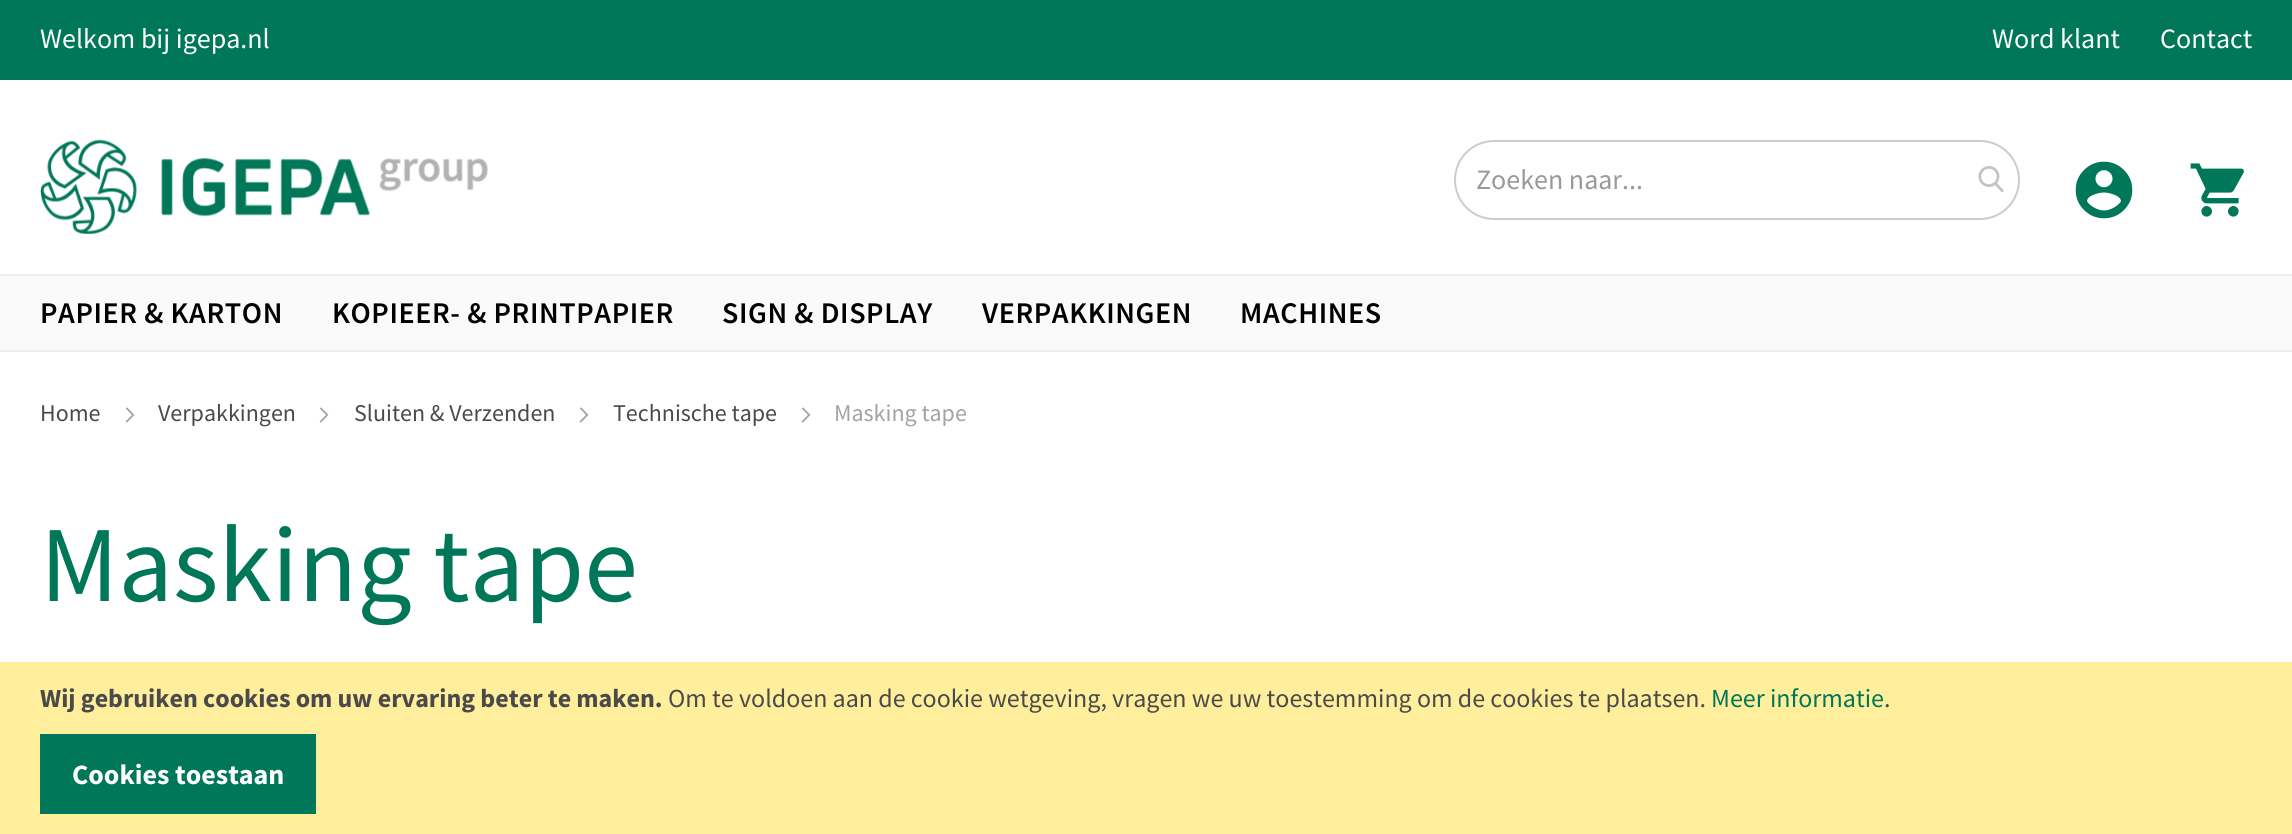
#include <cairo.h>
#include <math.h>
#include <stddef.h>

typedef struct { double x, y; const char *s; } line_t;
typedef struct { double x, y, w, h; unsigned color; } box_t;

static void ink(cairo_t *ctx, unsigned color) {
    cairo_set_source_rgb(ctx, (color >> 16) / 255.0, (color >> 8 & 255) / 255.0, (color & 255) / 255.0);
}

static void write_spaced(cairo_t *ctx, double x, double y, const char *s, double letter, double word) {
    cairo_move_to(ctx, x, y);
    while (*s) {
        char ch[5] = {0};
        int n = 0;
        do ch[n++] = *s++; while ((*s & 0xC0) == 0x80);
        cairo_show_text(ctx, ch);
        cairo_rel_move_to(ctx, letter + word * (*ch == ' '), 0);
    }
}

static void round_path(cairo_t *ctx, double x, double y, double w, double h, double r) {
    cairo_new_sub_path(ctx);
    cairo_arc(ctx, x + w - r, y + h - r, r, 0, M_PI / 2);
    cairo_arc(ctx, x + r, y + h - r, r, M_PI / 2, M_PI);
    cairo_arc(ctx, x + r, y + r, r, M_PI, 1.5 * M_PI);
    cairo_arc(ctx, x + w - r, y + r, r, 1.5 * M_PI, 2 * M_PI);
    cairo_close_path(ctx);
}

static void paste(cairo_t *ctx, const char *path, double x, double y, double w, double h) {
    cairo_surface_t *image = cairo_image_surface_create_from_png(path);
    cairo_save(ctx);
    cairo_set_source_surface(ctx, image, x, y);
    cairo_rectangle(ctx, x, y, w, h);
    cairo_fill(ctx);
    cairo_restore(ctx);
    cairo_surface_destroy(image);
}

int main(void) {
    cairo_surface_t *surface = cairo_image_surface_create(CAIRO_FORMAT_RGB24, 2292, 834);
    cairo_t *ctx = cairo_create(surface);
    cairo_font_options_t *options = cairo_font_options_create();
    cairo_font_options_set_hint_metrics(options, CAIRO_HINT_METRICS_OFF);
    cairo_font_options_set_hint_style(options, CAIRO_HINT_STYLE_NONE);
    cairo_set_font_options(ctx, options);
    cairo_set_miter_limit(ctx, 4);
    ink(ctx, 0xFFFFFF);
    cairo_paint(ctx);
    ink(ctx, 0x007758);
    cairo_rectangle(ctx, 0, 0, 2292, 80);
    cairo_fill(ctx);
    cairo_select_font_face(ctx, "Source Sans Pro", CAIRO_FONT_SLANT_NORMAL, CAIRO_FONT_WEIGHT_NORMAL);
    cairo_set_font_size(ctx, 28);
    ink(ctx, 0xFFFFFF);
    {
        static const line_t items[] = {
            {40, 48, "Welkom bij igepa.nl"},
            {1992, 48, "Word klant"},
            {2160, 48, "Contact"},
        };
        for (size_t i = 0; i < sizeof items / sizeof *items; i++) {
            cairo_move_to(ctx, items[i].x, items[i].y);
            cairo_show_text(ctx, items[i].s);
        }
    }
    paste(ctx, "media/1.png", 40, 139, 448, 95);
    round_path(ctx, 1455, 141, 564, 78, 39);
    ink(ctx, 0xCCCCCC);
    cairo_stroke(ctx);
    ink(ctx, 0x999999);
    cairo_move_to(ctx, 1476, 189);
    cairo_show_text(ctx, "Zoeken naar...");
    paste(ctx, "media/2.png", 1978, 166, 26, 26);
    paste(ctx, "media/3.png", 2075, 161, 58, 58);
    paste(ctx, "media/4.png", 2190, 163, 54, 54);
    {
        static const box_t items[] = {
            {0, 276, 2292, 74, 0xFAFAFA},
            {0, 274, 2292, 2, 0xEEEEEE},
            {0, 350, 2292, 2, 0xEEEEEE},
        };
        for (size_t i = 0; i < sizeof items / sizeof *items; i++) {
            ink(ctx, items[i].color);
            cairo_rectangle(ctx, items[i].x, items[i].y, items[i].w, items[i].h);
            cairo_fill(ctx);
        }
    }
    cairo_select_font_face(ctx, "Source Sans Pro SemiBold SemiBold", CAIRO_FONT_SLANT_NORMAL, CAIRO_FONT_WEIGHT_NORMAL);
    cairo_set_font_size(ctx, 30);
    ink(ctx, 0x000000);
    {
        static const line_t items[] = {
            {40, 323, "PAPIER & KARTON"},
            {332, 323, "KOPIEER- & PRINTPAPIER"},
            {722, 323, "SIGN & DISPLAY"},
            {982, 323, "VERPAKKINGEN"},
            {1240, 323, "MACHINES"},
        };
        for (size_t i = 0; i < sizeof items / sizeof *items; i++) {
            write_spaced(ctx, items[i].x, items[i].y, items[i].s, 0.6, 0);
        }
    }
    cairo_select_font_face(ctx, "Source Sans Pro", CAIRO_FONT_SLANT_NORMAL, CAIRO_FONT_WEIGHT_NORMAL);
    cairo_set_font_size(ctx, 24);
    ink(ctx, 0x4A4A4A);
    cairo_move_to(ctx, 40, 421);
    cairo_show_text(ctx, "Home");
    paste(ctx, "media/5.png", 125, 407, 10, 16);
    cairo_move_to(ctx, 158, 421);
    cairo_show_text(ctx, "Verpakkingen");
    paste(ctx, "media/5.png", 319, 407, 10, 16);
    cairo_move_to(ctx, 354, 421);
    cairo_show_text(ctx, "Sluiten & Verzenden");
    paste(ctx, "media/5.png", 579, 407, 10, 16);
    cairo_move_to(ctx, 613, 421);
    cairo_show_text(ctx, "Technische tape");
    paste(ctx, "media/5.png", 801, 407, 10, 16);
    ink(ctx, 0xA3A3A3);
    cairo_move_to(ctx, 834, 421);
    cairo_show_text(ctx, "Masking tape");
    cairo_set_font_size(ctx, 108);
    ink(ctx, 0x007758);
    cairo_move_to(ctx, 40, 601);
    cairo_show_text(ctx, "Masking tape");
    ink(ctx, 0xFFEE9C);
    cairo_rectangle(ctx, 0, 662, 2292, 172);
    cairo_fill(ctx);
    cairo_select_font_face(ctx, "Source Sans Pro", CAIRO_FONT_SLANT_NORMAL, CAIRO_FONT_WEIGHT_BOLD);
    cairo_set_font_size(ctx, 26);
    ink(ctx, 0x4A4A4A);
    cairo_move_to(ctx, 40, 707);
    cairo_show_text(ctx, "Wij gebruiken cookies om uw ervaring beter te maken.");
    cairo_select_font_face(ctx, "Source Sans Pro", CAIRO_FONT_SLANT_NORMAL, CAIRO_FONT_WEIGHT_NORMAL);
    cairo_move_to(ctx, 668, 707);
    cairo_show_text(ctx, "Om te voldoen aan de cookie wetgeving, vragen we uw toestemming om de cookies te plaatsen.");
    ink(ctx, 0x007758);
    cairo_move_to(ctx, 1711, 707);
    cairo_show_text(ctx, "Meer informatie");
    ink(ctx, 0x4A4A4A);
    cairo_move_to(ctx, 1884, 707);
    cairo_show_text(ctx, ".");
    ink(ctx, 0x007758);
    cairo_rectangle(ctx, 40, 734, 276, 80);
    cairo_fill(ctx);
    cairo_select_font_face(ctx, "Source Sans Pro", CAIRO_FONT_SLANT_NORMAL, CAIRO_FONT_WEIGHT_BOLD);
    cairo_set_font_size(ctx, 28);
    ink(ctx, 0xFFFFFF);
    cairo_move_to(ctx, 72, 784);
    cairo_show_text(ctx, "Cookies toestaan");
    cairo_surface_write_to_png(surface, "image.png");
    cairo_font_options_destroy(options);
    cairo_destroy(ctx);
    cairo_surface_destroy(surface);
    return 0;
}
